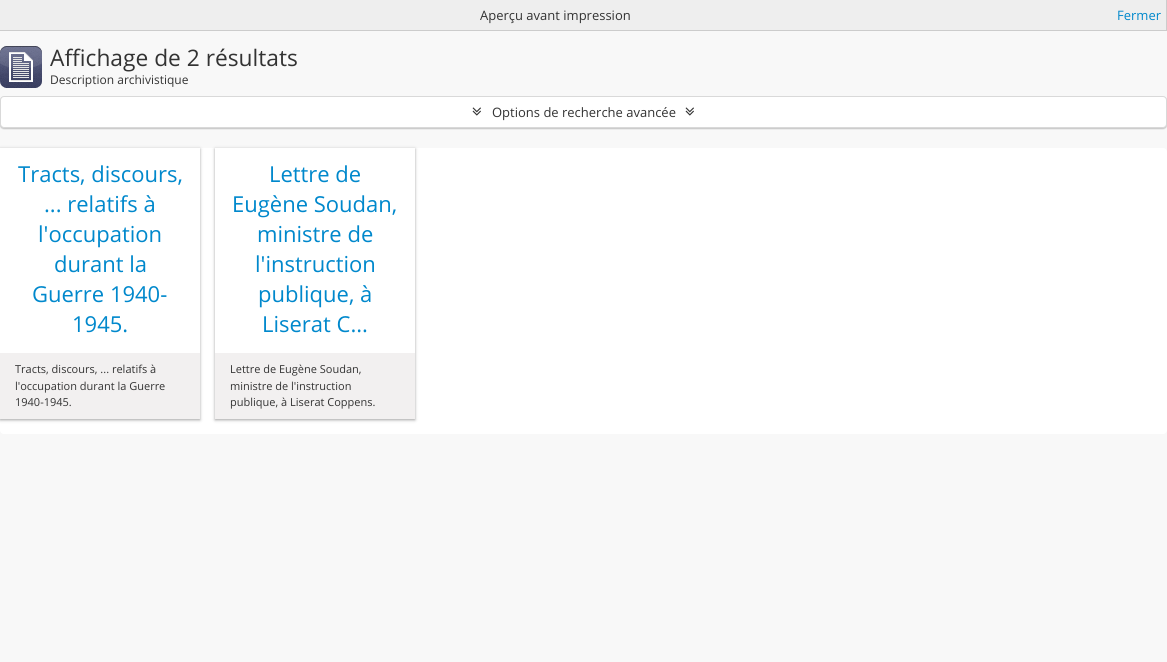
#include <cairo.h>
#include <math.h>
#include <stddef.h>

typedef struct { double x, y; const char *s; } line_t;
typedef struct { double x, y, w, h; unsigned color; } box_t;

static void ink(cairo_t *ctx, unsigned color) {
    cairo_set_source_rgb(ctx, (color >> 16) / 255.0, (color >> 8 & 255) / 255.0, (color & 255) / 255.0);
}

static void round_path(cairo_t *ctx, double x, double y, double w, double h, double r) {
    cairo_new_sub_path(ctx);
    cairo_arc(ctx, x + w - r, y + h - r, r, 0, M_PI / 2);
    cairo_arc(ctx, x + r, y + h - r, r, M_PI / 2, M_PI);
    cairo_arc(ctx, x + r, y + r, r, M_PI, 1.5 * M_PI);
    cairo_arc(ctx, x + w - r, y + r, r, 1.5 * M_PI, 2 * M_PI);
    cairo_close_path(ctx);
}

static void blur_box(cairo_t *ctx, double x, double y, double w, double h, double r, double blur, double alpha) {
    cairo_push_group_with_content(ctx, CAIRO_CONTENT_ALPHA);
    cairo_set_operator(ctx, CAIRO_OPERATOR_SOURCE);
    for (int i = 15; i >= -15 && fmin(w, h) + blur * i / 3 > 0; i -= 2) {
        double e = blur * i / 6;
        cairo_set_source_rgba(ctx, 0, 0, 0, alpha * erfc((i - 1) / 8.5) / 2);
        round_path(ctx, x - e, y - e, w + 2 * e, h + 2 * e, fmax(0, fmin(r + e + blur * .6, fmin(w, h) / 2 + e)));
        cairo_fill(ctx);
    }
    cairo_pattern_t *soft = cairo_pop_group(ctx);
    cairo_mask(ctx, soft);
    cairo_pattern_destroy(soft);
}

static void paste(cairo_t *ctx, const char *path, double x, double y, double w, double h) {
    cairo_surface_t *image = cairo_image_surface_create_from_png(path);
    cairo_save(ctx);
    cairo_set_source_surface(ctx, image, x, y);
    cairo_rectangle(ctx, x, y, w, h);
    cairo_fill(ctx);
    cairo_restore(ctx);
    cairo_surface_destroy(image);
}

int main(void) {
    cairo_surface_t *surface = cairo_image_surface_create(CAIRO_FORMAT_RGB24, 1167, 662);
    cairo_t *ctx = cairo_create(surface);
    cairo_font_options_t *options = cairo_font_options_create();
    cairo_font_options_set_hint_metrics(options, CAIRO_HINT_METRICS_OFF);
    cairo_font_options_set_hint_style(options, CAIRO_HINT_STYLE_NONE);
    cairo_set_font_options(ctx, options);
    cairo_set_miter_limit(ctx, 4);
    ink(ctx, 0xF8F8F8);
    cairo_paint(ctx);
    {
        static const box_t items[] = {
            {0, 0, 1166, 30, 0xEEEEEE},
            {1166, 0, 1, 31, 0xCCCCCC},
            {0, 30, 1167, 1, 0xCCCCCC},
        };
        for (size_t i = 0; i < sizeof items / sizeof *items; i++) {
            ink(ctx, items[i].color);
            cairo_rectangle(ctx, items[i].x, items[i].y, items[i].w, items[i].h);
            cairo_fill(ctx);
        }
    }
    cairo_select_font_face(ctx, "Open Sans", CAIRO_FONT_SLANT_NORMAL, CAIRO_FONT_WEIGHT_NORMAL);
    cairo_set_font_size(ctx, 13);
    ink(ctx, 0x333333);
    cairo_move_to(ctx, 480, 20);
    cairo_show_text(ctx, "Aperçu avant impression");
    ink(ctx, 0x0088CC);
    cairo_move_to(ctx, 1117, 20);
    cairo_show_text(ctx, "Fermer");
    paste(ctx, "media/1.png", 0, 46, 42, 42);
    cairo_set_font_size(ctx, 22.75);
    ink(ctx, 0x333333);
    cairo_move_to(ctx, 50, 66);
    cairo_show_text(ctx, "Affichage de 2 résultats");
    cairo_set_font_size(ctx, 12);
    cairo_move_to(ctx, 50, 84);
    cairo_show_text(ctx, "Description archivistique");
    ink(ctx, 0x000000);
    blur_box(ctx, 0, 97, 1167, 32, 4, 0.5, 0.2);
    ink(ctx, 0xFFFFFF);
    round_path(ctx, 0.5, 96.5, 1166, 31, 3.5);
    cairo_fill_preserve(ctx);
    ink(ctx, 0xD9D9D9);
    cairo_set_line_width(ctx, 1);
    cairo_stroke(ctx);
    paste(ctx, "media/2.png", 472, 107, 9, 9);
    cairo_set_font_size(ctx, 13);
    ink(ctx, 0x333333);
    cairo_move_to(ctx, 492, 117);
    cairo_show_text(ctx, "Options de recherche avancée");
    paste(ctx, "media/2.png", 685, 107, 9, 9);
    ink(ctx, 0xFFFFFF);
    round_path(ctx, 0, 148, 1167, 286, 4);
    cairo_fill(ctx);
    ink(ctx, 0x191919);
    blur_box(ctx, 0, 149, 200, 271, 0, 1.5, 0.4);
    ink(ctx, 0xFFFFFF);
    cairo_rectangle(ctx, 0, 148, 200, 205);
    cairo_fill(ctx);
    cairo_set_font_size(ctx, 22);
    ink(ctx, 0x0088CC);
    {
        static const line_t items[] = {
            {18, 182, "Tracts, discours,"},
            {44, 212, "... relatifs à"},
            {38, 242, "l'occupation"},
            {54, 272, "durant la"},
            {32, 302, "Guerre 1940-"},
            {72, 332, "1945."},
        };
        for (size_t i = 0; i < sizeof items / sizeof *items; i++) {
            cairo_move_to(ctx, items[i].x, items[i].y);
            cairo_show_text(ctx, items[i].s);
        }
    }
    ink(ctx, 0xF2F0F0);
    cairo_rectangle(ctx, 0, 353, 200, 66);
    cairo_fill(ctx);
    cairo_set_font_size(ctx, 11);
    ink(ctx, 0x333333);
    {
        static const line_t items[] = {
            {15, 373, "Tracts, discours, ... relatifs à"},
            {15, 390, "l'occupation durant la Guerre"},
            {15, 406, "1940-1945."},
        };
        for (size_t i = 0; i < sizeof items / sizeof *items; i++) {
            cairo_move_to(ctx, items[i].x, items[i].y);
            cairo_show_text(ctx, items[i].s);
        }
    }
    cairo_save(ctx);
    cairo_set_fill_rule(ctx, CAIRO_FILL_RULE_EVEN_ODD);
    cairo_new_path(ctx);
    cairo_move_to(ctx, 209, 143);
    cairo_line_to(ctx, 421, 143);
    cairo_line_to(ctx, 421, 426);
    cairo_line_to(ctx, 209, 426);
    cairo_close_path(ctx);
    cairo_move_to(ctx, 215, 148);
    cairo_line_to(ctx, 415, 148);
    cairo_line_to(ctx, 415, 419);
    cairo_line_to(ctx, 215, 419);
    cairo_close_path(ctx);
    cairo_clip(ctx);
    ink(ctx, 0x191919);
    blur_box(ctx, 215, 149, 200, 271, 0, 1.5, 0.4);
    cairo_restore(ctx);
    cairo_set_font_size(ctx, 22);
    ink(ctx, 0x0088CC);
    {
        static const line_t items[] = {
            {269, 182, "Lettre de"},
            {232, 212, "Eugène Soudan,"},
            {257, 242, "ministre de"},
            {255, 272, "l'instruction"},
            {258, 302, "publique, à"},
            {262, 332, "Liserat C..."},
        };
        for (size_t i = 0; i < sizeof items / sizeof *items; i++) {
            cairo_move_to(ctx, items[i].x, items[i].y);
            cairo_show_text(ctx, items[i].s);
        }
    }
    ink(ctx, 0xF2F0F0);
    cairo_rectangle(ctx, 215, 353, 200, 66);
    cairo_fill(ctx);
    cairo_set_font_size(ctx, 11);
    ink(ctx, 0x333333);
    {
        static const line_t items[] = {
            {230, 373, "Lettre de Eugène Soudan,"},
            {230, 390, "ministre de l'instruction"},
            {230, 406, "publique, à Liserat Coppens."},
        };
        for (size_t i = 0; i < sizeof items / sizeof *items; i++) {
            cairo_move_to(ctx, items[i].x, items[i].y);
            cairo_show_text(ctx, items[i].s);
        }
    }
    cairo_surface_write_to_png(surface, "image.png");
    cairo_font_options_destroy(options);
    cairo_destroy(ctx);
    cairo_surface_destroy(surface);
    return 0;
}
